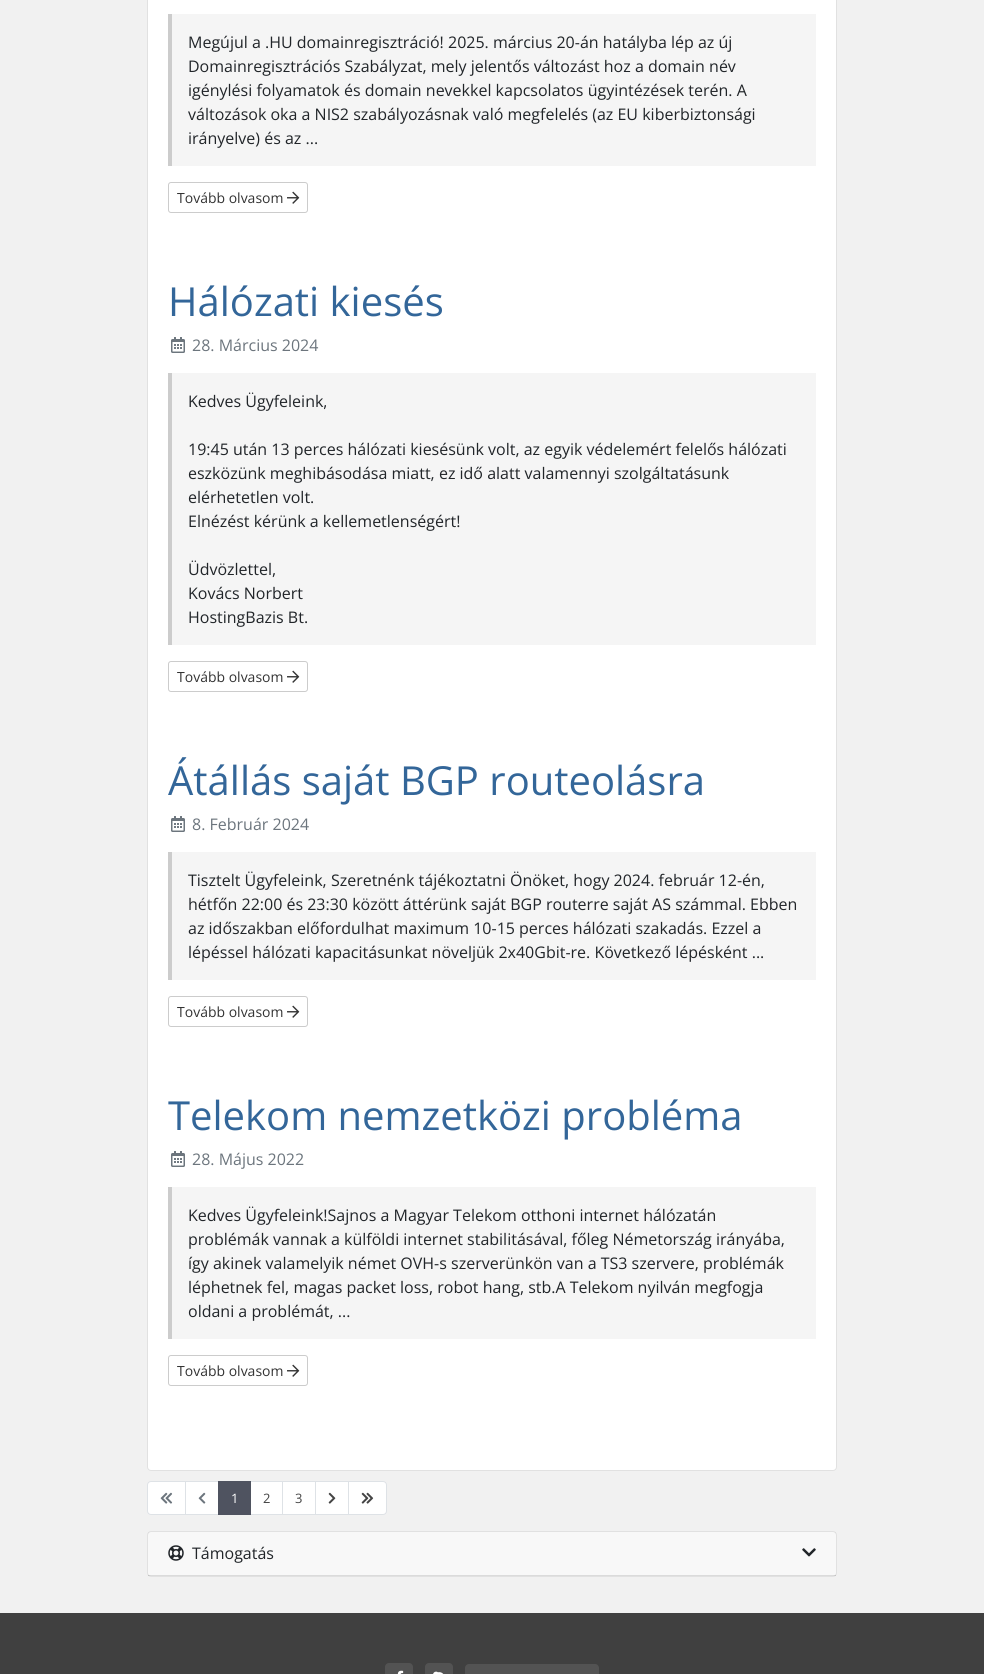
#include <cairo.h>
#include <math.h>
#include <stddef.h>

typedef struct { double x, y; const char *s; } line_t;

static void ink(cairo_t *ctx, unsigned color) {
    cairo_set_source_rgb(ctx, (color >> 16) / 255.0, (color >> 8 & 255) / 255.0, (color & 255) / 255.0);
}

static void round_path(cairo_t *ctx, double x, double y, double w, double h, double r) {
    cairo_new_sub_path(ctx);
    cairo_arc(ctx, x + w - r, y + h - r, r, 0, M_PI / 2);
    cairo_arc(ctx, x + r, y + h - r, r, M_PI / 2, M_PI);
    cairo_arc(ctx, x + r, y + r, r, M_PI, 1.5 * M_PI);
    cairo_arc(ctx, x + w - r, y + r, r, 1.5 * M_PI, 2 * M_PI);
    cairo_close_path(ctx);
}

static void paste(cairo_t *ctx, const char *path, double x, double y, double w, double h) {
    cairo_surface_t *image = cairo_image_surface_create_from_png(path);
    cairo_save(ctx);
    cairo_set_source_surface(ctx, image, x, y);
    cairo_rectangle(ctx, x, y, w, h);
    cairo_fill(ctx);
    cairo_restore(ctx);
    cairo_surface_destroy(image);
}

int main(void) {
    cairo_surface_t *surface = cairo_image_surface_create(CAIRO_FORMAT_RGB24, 984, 1674);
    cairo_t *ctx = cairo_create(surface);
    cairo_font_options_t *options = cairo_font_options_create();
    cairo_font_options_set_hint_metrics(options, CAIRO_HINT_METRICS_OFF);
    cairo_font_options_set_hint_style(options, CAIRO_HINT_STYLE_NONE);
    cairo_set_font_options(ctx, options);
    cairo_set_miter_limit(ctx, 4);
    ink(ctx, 0xF1F1F1);
    cairo_paint(ctx);
    ink(ctx, 0xFFFFFF);
    round_path(ctx, 147, -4, 690, 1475, 4);
    cairo_fill(ctx);
    round_path(ctx, 147.5, -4.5, 689, 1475, 3.5);
    cairo_set_source_rgba(ctx, 0, 0, 0, 0.12);
    cairo_set_line_width(ctx, 1);
    cairo_stroke(ctx);
    ink(ctx, 0xF5F5F5);
    cairo_rectangle(ctx, 172, 14, 644, 152);
    cairo_fill(ctx);
    ink(ctx, 0xCCCCCC);
    cairo_rectangle(ctx, 168, 14, 4, 152);
    cairo_fill(ctx);
    cairo_select_font_face(ctx, "Open Sans", CAIRO_FONT_SLANT_NORMAL, CAIRO_FONT_WEIGHT_NORMAL);
    cairo_set_font_size(ctx, 16);
    ink(ctx, 0x212529);
    {
        static const line_t items[] = {
            {188, 48, "Megújul a .HU domainregisztráció! 2025. március 20-án hatályba lép az új"},
            {188, 72, "Domainregisztrációs Szabályzat, mely jelentős változást hoz a domain név"},
            {188, 96, "igénylési folyamatok és domain nevekkel kapcsolatos ügyintézések terén. A"},
            {188, 120, "változások oka a NIS2 szabályozásnak való megfelelés (az EU kiberbiztonsági"},
            {188, 144, "irányelve) és az ..."},
        };
        for (size_t i = 0; i < sizeof items / sizeof *items; i++) {
            cairo_move_to(ctx, items[i].x, items[i].y);
            cairo_show_text(ctx, items[i].s);
        }
    }
    round_path(ctx, 168.5, 182.5, 139, 30, 2.5);
    ink(ctx, 0xCCCCCC);
    cairo_stroke(ctx);
    cairo_set_font_size(ctx, 14);
    ink(ctx, 0x333333);
    cairo_move_to(ctx, 177, 203);
    cairo_show_text(ctx, "Tovább olvasom");
    paste(ctx, "media/1.png", 287, 191, 13, 13);
    cairo_set_font_size(ctx, 40);
    ink(ctx, 0x336699);
    cairo_move_to(ctx, 168, 316);
    cairo_show_text(ctx, "Hálózati kiesés");
    paste(ctx, "media/2.png", 171, 337, 14, 16);
    cairo_set_font_size(ctx, 16);
    ink(ctx, 0x6C757D);
    cairo_move_to(ctx, 192, 351);
    cairo_show_text(ctx, "28. Március 2024");
    ink(ctx, 0xF5F5F5);
    cairo_rectangle(ctx, 172, 373, 644, 272);
    cairo_fill(ctx);
    ink(ctx, 0xCCCCCC);
    cairo_rectangle(ctx, 168, 373, 4, 272);
    cairo_fill(ctx);
    ink(ctx, 0x212529);
    {
        static const line_t items[] = {
            {188, 407, "Kedves Ügyfeleink,"},
            {188, 455, "19:45 után 13 perces hálózati kiesésünk volt, az egyik védelemért felelős hálózati"},
            {188, 479, "eszközünk meghibásodása miatt, ez idő alatt valamennyi szolgáltatásunk"},
            {188, 503, "elérhetetlen volt."},
            {188, 527, "Elnézést kérünk a kellemetlenségért!"},
            {188, 575, "Üdvözlettel,"},
            {188, 599, "Kovács Norbert"},
            {188, 623, "HostingBazis Bt."},
        };
        for (size_t i = 0; i < sizeof items / sizeof *items; i++) {
            cairo_move_to(ctx, items[i].x, items[i].y);
            cairo_show_text(ctx, items[i].s);
        }
    }
    round_path(ctx, 168.5, 661.5, 139, 30, 2.5);
    ink(ctx, 0xCCCCCC);
    cairo_stroke(ctx);
    cairo_set_font_size(ctx, 14);
    ink(ctx, 0x333333);
    cairo_move_to(ctx, 177, 682);
    cairo_show_text(ctx, "Tovább olvasom");
    paste(ctx, "media/1.png", 287, 670, 13, 13);
    cairo_set_font_size(ctx, 40);
    ink(ctx, 0x336699);
    cairo_move_to(ctx, 168, 795);
    cairo_show_text(ctx, "Átállás saját BGP routeolásra");
    paste(ctx, "media/2.png", 171, 816, 14, 16);
    cairo_set_font_size(ctx, 16);
    ink(ctx, 0x6C757D);
    cairo_move_to(ctx, 192, 830);
    cairo_show_text(ctx, "8. Február 2024");
    ink(ctx, 0xF5F5F5);
    cairo_rectangle(ctx, 172, 852, 644, 128);
    cairo_fill(ctx);
    ink(ctx, 0xCCCCCC);
    cairo_rectangle(ctx, 168, 852, 4, 128);
    cairo_fill(ctx);
    ink(ctx, 0x212529);
    {
        static const line_t items[] = {
            {188, 886, "Tisztelt Ügyfeleink, Szeretnénk tájékoztatni Önöket, hogy 2024. február 12-én,"},
            {188, 910, "hétfőn 22:00 és 23:30 között áttérünk saját BGP routerre saját AS számmal. Ebben"},
            {188, 934, "az időszakban előfordulhat maximum 10-15 perces hálózati szakadás. Ezzel a"},
            {188, 958, "lépéssel hálózati kapacitásunkat növeljük 2x40Gbit-re. Következő lépésként ..."},
        };
        for (size_t i = 0; i < sizeof items / sizeof *items; i++) {
            cairo_move_to(ctx, items[i].x, items[i].y);
            cairo_show_text(ctx, items[i].s);
        }
    }
    round_path(ctx, 168.5, 996.5, 139, 30, 2.5);
    ink(ctx, 0xCCCCCC);
    cairo_stroke(ctx);
    cairo_set_font_size(ctx, 14);
    ink(ctx, 0x333333);
    cairo_move_to(ctx, 177, 1017);
    cairo_show_text(ctx, "Tovább olvasom");
    paste(ctx, "media/1.png", 287, 1005, 13, 13);
    cairo_set_font_size(ctx, 40);
    ink(ctx, 0x336699);
    cairo_move_to(ctx, 168, 1130);
    cairo_show_text(ctx, "Telekom nemzetközi probléma");
    paste(ctx, "media/2.png", 171, 1151, 14, 16);
    cairo_set_font_size(ctx, 16);
    ink(ctx, 0x6C757D);
    cairo_move_to(ctx, 192, 1165);
    cairo_show_text(ctx, "28. Május 2022");
    ink(ctx, 0xF5F5F5);
    cairo_rectangle(ctx, 172, 1187, 644, 152);
    cairo_fill(ctx);
    ink(ctx, 0xCCCCCC);
    cairo_rectangle(ctx, 168, 1187, 4, 152);
    cairo_fill(ctx);
    ink(ctx, 0x212529);
    {
        static const line_t items[] = {
            {188, 1221, "Kedves Ügyfeleink!Sajnos a Magyar Telekom otthoni internet hálózatán"},
            {188, 1245, "problémák vannak a külföldi internet stabilitásával, főleg Németország irányába,"},
            {188, 1269, "így akinek valamelyik német OVH-s szerverünkön van a TS3 szervere, problémák"},
            {188, 1293, "léphetnek fel, magas packet loss, robot hang, stb.A Telekom nyilván megfogja"},
            {188, 1317, "oldani a problémát, ..."},
        };
        for (size_t i = 0; i < sizeof items / sizeof *items; i++) {
            cairo_move_to(ctx, items[i].x, items[i].y);
            cairo_show_text(ctx, items[i].s);
        }
    }
    round_path(ctx, 168.5, 1355.5, 139, 30, 2.5);
    ink(ctx, 0xCCCCCC);
    cairo_stroke(ctx);
    cairo_set_font_size(ctx, 14);
    ink(ctx, 0x333333);
    cairo_move_to(ctx, 177, 1376);
    cairo_show_text(ctx, "Tovább olvasom");
    paste(ctx, "media/1.png", 287, 1364, 13, 13);
    ink(ctx, 0xFFFFFF);
    cairo_new_path(ctx);
    cairo_move_to(ctx, 151, 1481.5);
    cairo_line_to(ctx, 185.5, 1481.5);
    cairo_line_to(ctx, 185.5, 1514.5);
    cairo_line_to(ctx, 151, 1514.5);
    cairo_curve_to(ctx, 149, 1514.5, 147.5, 1513, 147.5, 1511);
    cairo_line_to(ctx, 147.5, 1485);
    cairo_curve_to(ctx, 147.5, 1483, 149, 1481.5, 151, 1481.5);
    cairo_close_path(ctx);
    cairo_fill_preserve(ctx);
    ink(ctx, 0xDEE2E6);
    cairo_stroke(ctx);
    paste(ctx, "media/3.png", 160, 1492, 13, 12);
    ink(ctx, 0xFFFFFF);
    cairo_rectangle(ctx, 185.5, 1481.5, 33, 33);
    cairo_fill_preserve(ctx);
    ink(ctx, 0xDEE2E6);
    cairo_stroke(ctx);
    paste(ctx, "media/4.png", 198, 1492, 8, 12);
    ink(ctx, 0xFFFFFF);
    cairo_rectangle(ctx, 250.5, 1481.5, 32, 33);
    cairo_fill_preserve(ctx);
    ink(ctx, 0xDEE2E6);
    cairo_stroke(ctx);
    ink(ctx, 0x4F5360);
    cairo_rectangle(ctx, 218, 1481, 33, 34);
    cairo_fill(ctx);
    cairo_set_font_size(ctx, 13);
    ink(ctx, 0xFFFFFF);
    cairo_move_to(ctx, 231, 1503);
    cairo_show_text(ctx, "1");
    ink(ctx, 0x444444);
    cairo_move_to(ctx, 263, 1503);
    cairo_show_text(ctx, "2");
    ink(ctx, 0xFFFFFF);
    cairo_rectangle(ctx, 282.5, 1481.5, 33, 33);
    cairo_fill_preserve(ctx);
    ink(ctx, 0xDEE2E6);
    cairo_stroke(ctx);
    ink(ctx, 0x444444);
    cairo_move_to(ctx, 295, 1503);
    cairo_show_text(ctx, "3");
    ink(ctx, 0xFFFFFF);
    cairo_rectangle(ctx, 315.5, 1481.5, 33, 33);
    cairo_fill_preserve(ctx);
    ink(ctx, 0xDEE2E6);
    cairo_stroke(ctx);
    paste(ctx, "media/5.png", 328, 1492, 8, 12);
    ink(ctx, 0xFFFFFF);
    cairo_new_path(ctx);
    cairo_move_to(ctx, 348.5, 1481.5);
    cairo_line_to(ctx, 383, 1481.5);
    cairo_curve_to(ctx, 385, 1481.5, 386.5, 1483, 386.5, 1485);
    cairo_line_to(ctx, 386.5, 1511);
    cairo_curve_to(ctx, 386.5, 1513, 385, 1514.5, 383, 1514.5);
    cairo_line_to(ctx, 348.5, 1514.5);
    cairo_close_path(ctx);
    cairo_fill_preserve(ctx);
    ink(ctx, 0xDEE2E6);
    cairo_stroke(ctx);
    paste(ctx, "media/6.png", 361, 1492, 13, 12);
    ink(ctx, 0xFFFFFF);
    round_path(ctx, 147, 1531, 690, 46, 4);
    cairo_fill(ctx);
    round_path(ctx, 147.5, 1531.5, 689, 45, 3.5);
    cairo_set_source_rgba(ctx, 0, 0, 0, 0.12);
    cairo_stroke(ctx);
    cairo_set_source_rgba(ctx, 0, 0, 0, 0.03);
    cairo_rectangle(ctx, 148, 1532, 688, 44);
    cairo_fill(ctx);
    cairo_set_source_rgba(ctx, 0, 0, 0, 0.12);
    cairo_rectangle(ctx, 148, 1575, 688, 1);
    cairo_fill(ctx);
    paste(ctx, "media/7.png", 168, 1545, 16, 16);
    cairo_set_font_size(ctx, 16);
    ink(ctx, 0x212529);
    cairo_move_to(ctx, 192, 1559);
    cairo_show_text(ctx, "Támogatás");
    paste(ctx, "media/8.png", 802, 1548, 14, 9);
    ink(ctx, 0x404040);
    cairo_rectangle(ctx, 0, 1613, 984, 61);
    cairo_fill(ctx);
    ink(ctx, 0x535353);
    round_path(ctx, 385, 1663, 28, 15, 4);
    cairo_fill(ctx);
    paste(ctx, "media/9.png", 397, 1670, 7, 4);
    round_path(ctx, 425, 1663, 28, 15, 4);
    cairo_fill(ctx);
    paste(ctx, "media/10.png", 433, 1671, 11, 3);
    round_path(ctx, 465, 1664, 134, 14, 4);
    cairo_fill(ctx);
    cairo_surface_write_to_png(surface, "image.png");
    cairo_font_options_destroy(options);
    cairo_destroy(ctx);
    cairo_surface_destroy(surface);
    return 0;
}
